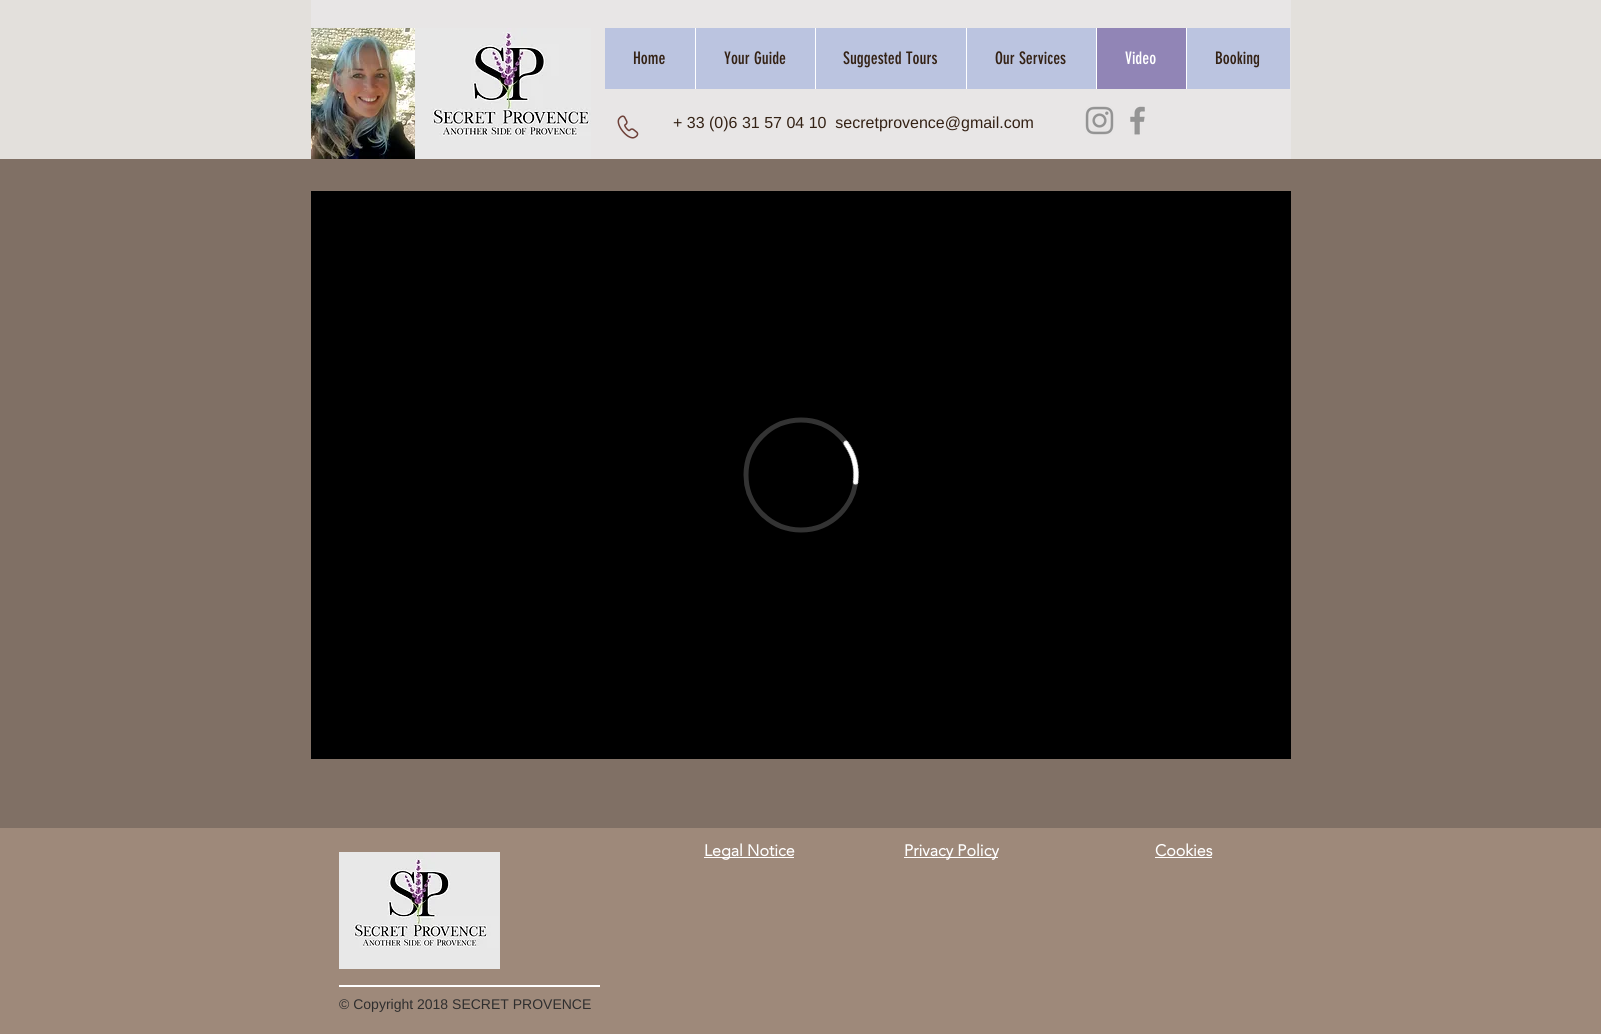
#include <cairo.h>
#include <math.h>
#include <stddef.h>


static void ink(cairo_t *ctx, unsigned color) {
    cairo_set_source_rgb(ctx, (color >> 16) / 255.0, (color >> 8 & 255) / 255.0, (color & 255) / 255.0);
}

static void paste(cairo_t *ctx, const char *path, double x, double y, double w, double h) {
    cairo_surface_t *image = cairo_image_surface_create_from_png(path);
    cairo_save(ctx);
    cairo_set_source_surface(ctx, image, x, y);
    cairo_rectangle(ctx, x, y, w, h);
    cairo_fill(ctx);
    cairo_restore(ctx);
    cairo_surface_destroy(image);
}

int main(void) {
    cairo_surface_t *surface = cairo_image_surface_create(CAIRO_FORMAT_RGB24, 1601, 1034);
    cairo_t *ctx = cairo_create(surface);
    cairo_font_options_t *options = cairo_font_options_create();
    cairo_font_options_set_hint_metrics(options, CAIRO_HINT_METRICS_OFF);
    cairo_font_options_set_hint_style(options, CAIRO_HINT_STYLE_NONE);
    cairo_set_font_options(ctx, options);
    cairo_set_miter_limit(ctx, 4);
    ink(ctx, 0x807065);
    cairo_paint(ctx);
    ink(ctx, 0xE3E0DC);
    cairo_rectangle(ctx, 0, 0, 1601, 159);
    cairo_fill(ctx);
    ink(ctx, 0xE8E6E6);
    cairo_rectangle(ctx, 311, 0, 980, 159);
    cairo_fill(ctx);
    paste(ctx, "media/1.png", 311, 28, 104, 131);
    paste(ctx, "media/2.png", 415, 28, 176, 131);
    ink(ctx, 0xBBC4E0);
    cairo_rectangle(ctx, 605, 28, 685, 61);
    cairo_fill(ctx);
    cairo_select_font_face(ctx, "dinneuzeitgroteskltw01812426", CAIRO_FONT_SLANT_NORMAL, CAIRO_FONT_WEIGHT_NORMAL);
    cairo_set_font_size(ctx, 17);
    ink(ctx, 0x342215);
    cairo_move_to(ctx, 633, 64);
    cairo_show_text(ctx, "Home");
    ink(ctx, 0xFFFFFF);
    cairo_rectangle(ctx, 695, 28, 1, 61);
    cairo_fill(ctx);
    ink(ctx, 0x342215);
    cairo_move_to(ctx, 724, 64);
    cairo_show_text(ctx, "Your Guide");
    ink(ctx, 0xFFFFFF);
    cairo_rectangle(ctx, 815, 28, 1, 61);
    cairo_fill(ctx);
    ink(ctx, 0x342215);
    cairo_move_to(ctx, 843, 64);
    cairo_show_text(ctx, "Suggested Tours");
    ink(ctx, 0xFFFFFF);
    cairo_rectangle(ctx, 966, 28, 1, 61);
    cairo_fill(ctx);
    ink(ctx, 0x342215);
    cairo_move_to(ctx, 995, 64);
    cairo_show_text(ctx, "Our Services");
    ink(ctx, 0x9185B6);
    cairo_rectangle(ctx, 1097, 28, 89, 61);
    cairo_fill(ctx);
    ink(ctx, 0xFFFFFF);
    cairo_rectangle(ctx, 1096, 28, 1, 61);
    cairo_fill(ctx);
    cairo_move_to(ctx, 1125, 64);
    cairo_show_text(ctx, "Video");
    cairo_rectangle(ctx, 1186, 28, 1, 61);
    cairo_fill(ctx);
    ink(ctx, 0x342215);
    cairo_move_to(ctx, 1215, 64);
    cairo_show_text(ctx, "Booking");
    paste(ctx, "media/3.png", 617, 115, 22, 24);
    cairo_select_font_face(ctx, "Liberation Sans", CAIRO_FONT_SLANT_NORMAL, CAIRO_FONT_WEIGHT_NORMAL);
    cairo_set_font_size(ctx, 16);
    cairo_move_to(ctx, 673, 128);
    cairo_show_text(ctx, "+ 33 (0)6 31 57 04 10  secretprovence@gmail.com");
    paste(ctx, "media/4.png", 1085, 106, 29, 29);
    paste(ctx, "media/5.png", 1130, 106, 15, 29);
    paste(ctx, "media/6.png", 311, 191, 980, 568);
    ink(ctx, 0x9E897A);
    cairo_rectangle(ctx, 0, 828, 1601, 206);
    cairo_fill(ctx);
    ink(ctx, 0xFFFFFF);
    cairo_rectangle(ctx, 704, 857, 90, 1);
    cairo_fill(ctx);
    cairo_select_font_face(ctx, "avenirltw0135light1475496", CAIRO_FONT_SLANT_NORMAL, CAIRO_FONT_WEIGHT_BOLD);
    cairo_move_to(ctx, 704, 856);
    cairo_show_text(ctx, "Legal Notice");
    cairo_rectangle(ctx, 904, 857, 94, 1);
    cairo_fill(ctx);
    cairo_move_to(ctx, 904, 856);
    cairo_show_text(ctx, "Privacy Policy");
    cairo_move_to(ctx, 1155, 856);
    cairo_show_text(ctx, "Cookies");
    cairo_rectangle(ctx, 1155, 857, 57, 1);
    cairo_fill(ctx);
    paste(ctx, "media/7.png", 339, 852, 161, 117);
    cairo_rectangle(ctx, 339, 985, 261, 2);
    cairo_fill(ctx);
    cairo_select_font_face(ctx, "Liberation Sans", CAIRO_FONT_SLANT_NORMAL, CAIRO_FONT_WEIGHT_NORMAL);
    cairo_set_font_size(ctx, 14);
    ink(ctx, 0x2F2E2E);
    cairo_move_to(ctx, 339, 1009);
    cairo_show_text(ctx, "© Copyright 2018 SECRET PROVENCE");
    cairo_surface_write_to_png(surface, "image.png");
    cairo_font_options_destroy(options);
    cairo_destroy(ctx);
    cairo_surface_destroy(surface);
    return 0;
}
